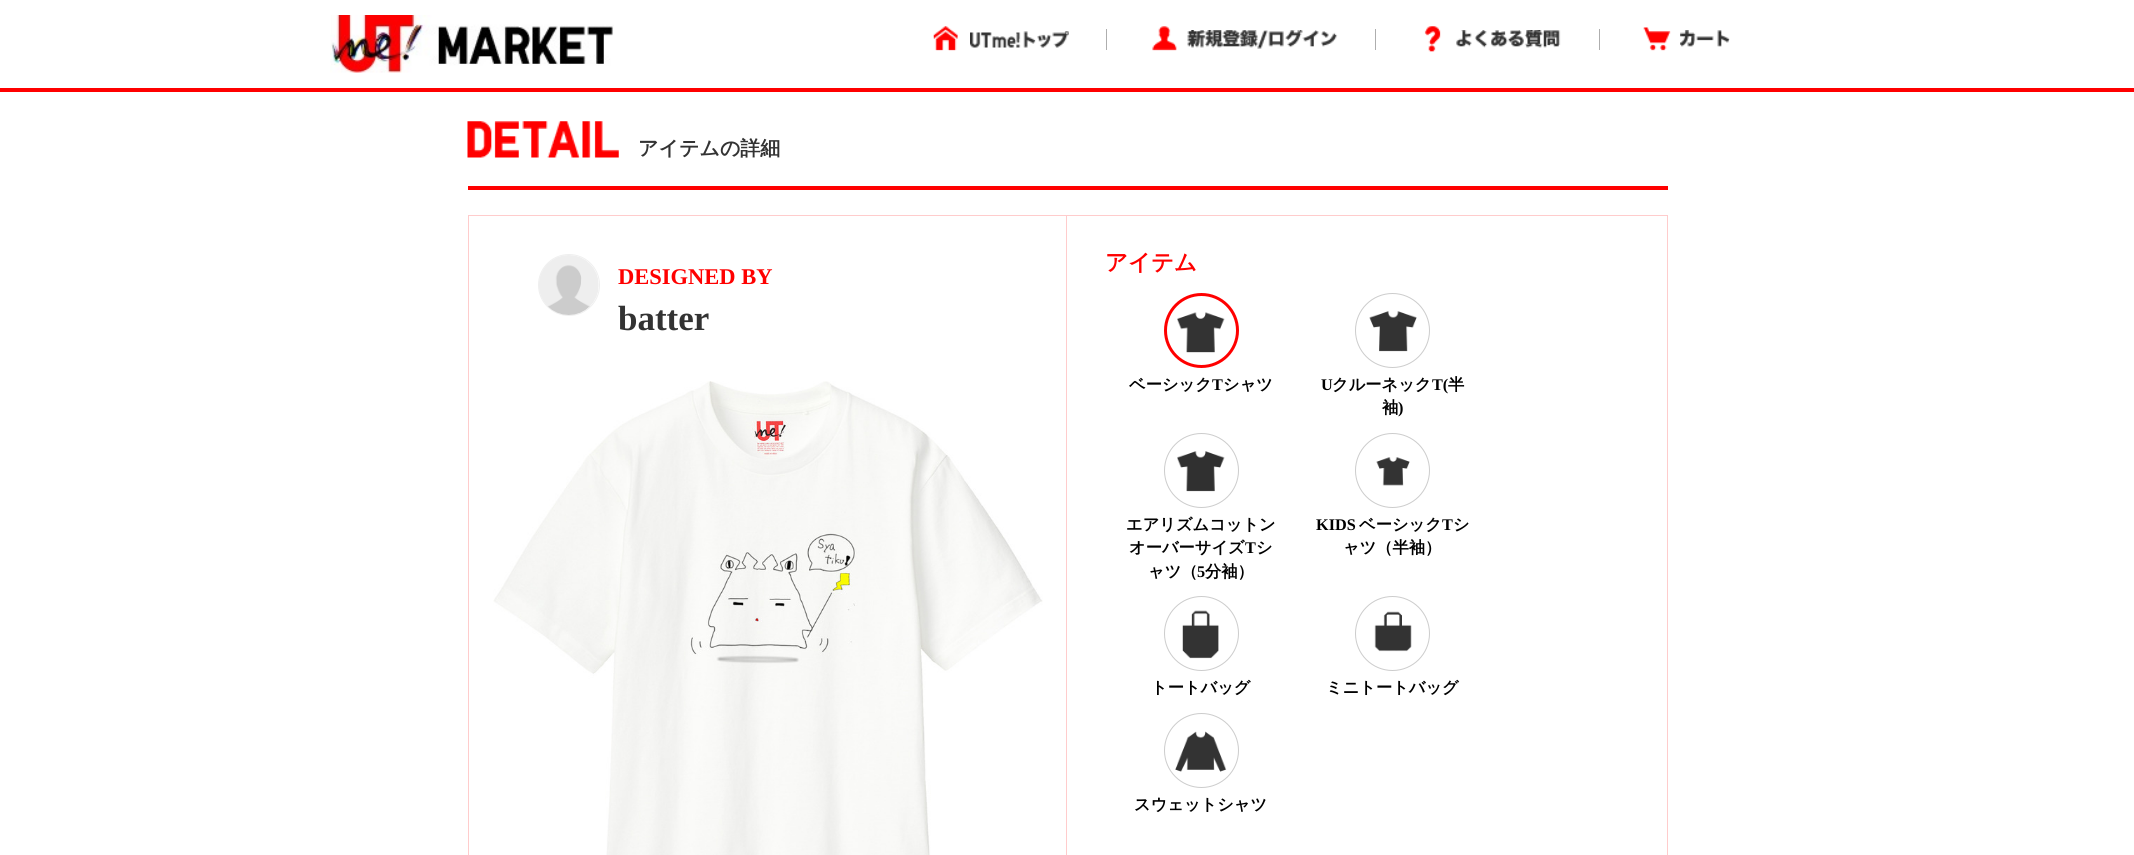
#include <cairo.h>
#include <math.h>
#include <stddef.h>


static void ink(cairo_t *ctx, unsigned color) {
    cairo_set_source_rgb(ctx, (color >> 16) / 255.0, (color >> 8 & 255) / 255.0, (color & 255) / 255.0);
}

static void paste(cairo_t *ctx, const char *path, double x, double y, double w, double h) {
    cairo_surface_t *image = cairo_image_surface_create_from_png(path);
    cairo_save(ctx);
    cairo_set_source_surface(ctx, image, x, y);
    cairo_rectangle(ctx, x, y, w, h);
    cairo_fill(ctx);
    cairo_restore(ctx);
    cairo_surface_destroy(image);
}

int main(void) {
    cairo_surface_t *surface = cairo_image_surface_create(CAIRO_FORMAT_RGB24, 2134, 855);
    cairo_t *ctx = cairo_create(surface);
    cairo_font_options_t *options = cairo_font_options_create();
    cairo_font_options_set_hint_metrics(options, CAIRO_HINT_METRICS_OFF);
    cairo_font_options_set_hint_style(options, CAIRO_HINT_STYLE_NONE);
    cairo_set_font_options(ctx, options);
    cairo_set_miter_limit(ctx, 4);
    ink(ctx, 0xFFFFFF);
    cairo_paint(ctx);
    paste(ctx, "media/1.png", 330, 15, 284, 58);
    paste(ctx, "media/2.png", 933, 26, 25, 25);
    paste(ctx, "media/3.png", 970, 31, 99, 17);
    ink(ctx, 0xAEAEAE);
    cairo_rectangle(ctx, 1106, 29, 1, 21);
    cairo_fill(ctx);
    paste(ctx, "media/4.png", 1152, 26, 25, 25);
    paste(ctx, "media/5.png", 1187, 30, 151, 19);
    cairo_rectangle(ctx, 1375, 29, 1, 21);
    cairo_fill(ctx);
    paste(ctx, "media/6.png", 1424, 26, 17, 26);
    paste(ctx, "media/7.png", 1456, 30, 105, 18);
    cairo_rectangle(ctx, 1599, 29, 1, 21);
    cairo_fill(ctx);
    paste(ctx, "media/8.png", 1643, 27, 28, 24);
    paste(ctx, "media/9.png", 1680, 30, 50, 17);
    ink(ctx, 0xFF0000);
    cairo_rectangle(ctx, 0, 88, 2134, 4);
    cairo_fill(ctx);
    paste(ctx, "media/10.png", 467, 121, 152, 37);
    cairo_select_font_face(ctx, "WenQuanYi Zen Hei", CAIRO_FONT_SLANT_NORMAL, CAIRO_FONT_WEIGHT_BOLD);
    cairo_set_font_size(ctx, 20);
    ink(ctx, 0x333333);
    cairo_move_to(ctx, 638, 155);
    cairo_show_text(ctx, "アイテムの詳細");
    ink(ctx, 0xFF0000);
    cairo_rectangle(ctx, 468, 186, 1200, 4);
    cairo_fill(ctx);
    cairo_rectangle(ctx, 468.5, 215.5, 1199, 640);
    ink(ctx, 0xFFCCCC);
    cairo_set_line_width(ctx, 1);
    cairo_stroke(ctx);
    cairo_rectangle(ctx, 1066, 216, 1, 639);
    cairo_fill(ctx);
    cairo_arc(ctx, 569, 285, 30.5, 0, 2 * M_PI);
    ink(ctx, 0xEFEFEF);
    cairo_stroke(ctx);
    paste(ctx, "media/11.png", 539, 255, 60, 60);
    cairo_select_font_face(ctx, "Liberation Serif", CAIRO_FONT_SLANT_NORMAL, CAIRO_FONT_WEIGHT_BOLD);
    cairo_set_font_size(ctx, 22.5);
    ink(ctx, 0xFF0000);
    cairo_move_to(ctx, 618, 284);
    cairo_show_text(ctx, "DESIGNED BY");
    cairo_set_font_size(ctx, 35);
    ink(ctx, 0x333333);
    cairo_move_to(ctx, 618, 330);
    cairo_show_text(ctx, "batter");
    paste(ctx, "media/12.png", 493, 381, 550, 474);
    cairo_select_font_face(ctx, "WenQuanYi Zen Hei", CAIRO_FONT_SLANT_NORMAL, CAIRO_FONT_WEIGHT_BOLD);
    cairo_set_font_size(ctx, 22.5);
    ink(ctx, 0xFF0000);
    cairo_move_to(ctx, 1105, 270);
    cairo_show_text(ctx, "アイテム");
    cairo_new_path(ctx);
    cairo_arc(ctx, 1201.5, 330.5, 36, 0, 2 * M_PI);
    cairo_set_line_width(ctx, 3);
    cairo_stroke(ctx);
    paste(ctx, "media/13.png", 1177, 312, 48, 41);
    cairo_set_font_size(ctx, 16.25);
    ink(ctx, 0x000000);
    cairo_move_to(ctx, 1129, 390);
    cairo_show_text(ctx, "ベーシック");
    cairo_select_font_face(ctx, "Liberation Serif", CAIRO_FONT_SLANT_NORMAL, CAIRO_FONT_WEIGHT_BOLD);
    cairo_move_to(ctx, 1212, 390);
    cairo_show_text(ctx, "T");
    cairo_select_font_face(ctx, "WenQuanYi Zen Hei", CAIRO_FONT_SLANT_NORMAL, CAIRO_FONT_WEIGHT_BOLD);
    cairo_move_to(ctx, 1223, 390);
    cairo_show_text(ctx, "シャツ");
    cairo_new_path(ctx);
    cairo_arc(ctx, 1392.5, 330.5, 37, 0, 2 * M_PI);
    ink(ctx, 0xCCCCCC);
    cairo_set_line_width(ctx, 1);
    cairo_stroke(ctx);
    paste(ctx, "media/14.png", 1369, 311, 48, 41);
    cairo_select_font_face(ctx, "Liberation Serif", CAIRO_FONT_SLANT_NORMAL, CAIRO_FONT_WEIGHT_BOLD);
    ink(ctx, 0x000000);
    cairo_move_to(ctx, 1321, 390);
    cairo_show_text(ctx, "U");
    cairo_select_font_face(ctx, "WenQuanYi Zen Hei", CAIRO_FONT_SLANT_NORMAL, CAIRO_FONT_WEIGHT_BOLD);
    cairo_move_to(ctx, 1332, 390);
    cairo_show_text(ctx, "クルーネック");
    cairo_select_font_face(ctx, "Liberation Serif", CAIRO_FONT_SLANT_NORMAL, CAIRO_FONT_WEIGHT_BOLD);
    cairo_move_to(ctx, 1432, 390);
    cairo_show_text(ctx, "T(");
    cairo_select_font_face(ctx, "WenQuanYi Zen Hei", CAIRO_FONT_SLANT_NORMAL, CAIRO_FONT_WEIGHT_BOLD);
    cairo_move_to(ctx, 1448, 390);
    cairo_show_text(ctx, "半");
    cairo_move_to(ctx, 1382, 413);
    cairo_show_text(ctx, "袖");
    cairo_select_font_face(ctx, "Liberation Serif", CAIRO_FONT_SLANT_NORMAL, CAIRO_FONT_WEIGHT_BOLD);
    cairo_move_to(ctx, 1398, 413);
    cairo_show_text(ctx, ")");
    cairo_new_path(ctx);
    cairo_arc(ctx, 1201.5, 470.5, 37, 0, 2 * M_PI);
    ink(ctx, 0xCCCCCC);
    cairo_stroke(ctx);
    paste(ctx, "media/15.png", 1177, 451, 48, 41);
    cairo_select_font_face(ctx, "WenQuanYi Zen Hei", CAIRO_FONT_SLANT_NORMAL, CAIRO_FONT_WEIGHT_BOLD);
    ink(ctx, 0x000000);
    cairo_move_to(ctx, 1126, 530);
    cairo_show_text(ctx, "エアリズムコットン");
    cairo_move_to(ctx, 1129, 553);
    cairo_show_text(ctx, "オーバーサイズ");
    cairo_select_font_face(ctx, "Liberation Serif", CAIRO_FONT_SLANT_NORMAL, CAIRO_FONT_WEIGHT_BOLD);
    cairo_move_to(ctx, 1245, 553);
    cairo_show_text(ctx, "T");
    cairo_select_font_face(ctx, "WenQuanYi Zen Hei", CAIRO_FONT_SLANT_NORMAL, CAIRO_FONT_WEIGHT_BOLD);
    cairo_move_to(ctx, 1256, 553);
    cairo_show_text(ctx, "シ");
    cairo_move_to(ctx, 1148, 577);
    cairo_show_text(ctx, "ャツ（");
    cairo_select_font_face(ctx, "Liberation Serif", CAIRO_FONT_SLANT_NORMAL, CAIRO_FONT_WEIGHT_BOLD);
    cairo_move_to(ctx, 1197, 577);
    cairo_show_text(ctx, "5");
    cairo_select_font_face(ctx, "WenQuanYi Zen Hei", CAIRO_FONT_SLANT_NORMAL, CAIRO_FONT_WEIGHT_BOLD);
    cairo_move_to(ctx, 1205, 577);
    cairo_show_text(ctx, "分袖）");
    cairo_new_path(ctx);
    cairo_arc(ctx, 1392.5, 470.5, 37, 0, 2 * M_PI);
    ink(ctx, 0xCCCCCC);
    cairo_stroke(ctx);
    paste(ctx, "media/16.png", 1376, 457, 34, 29);
    cairo_select_font_face(ctx, "Liberation Serif", CAIRO_FONT_SLANT_NORMAL, CAIRO_FONT_WEIGHT_BOLD);
    ink(ctx, 0x000000);
    cairo_move_to(ctx, 1316, 530);
    cairo_show_text(ctx, "KIDS");
    cairo_select_font_face(ctx, "WenQuanYi Zen Hei", CAIRO_FONT_SLANT_NORMAL, CAIRO_FONT_WEIGHT_BOLD);
    cairo_move_to(ctx, 1359, 530);
    cairo_show_text(ctx, "ベーシック");
    cairo_select_font_face(ctx, "Liberation Serif", CAIRO_FONT_SLANT_NORMAL, CAIRO_FONT_WEIGHT_BOLD);
    cairo_move_to(ctx, 1442, 530);
    cairo_show_text(ctx, "T");
    cairo_select_font_face(ctx, "WenQuanYi Zen Hei", CAIRO_FONT_SLANT_NORMAL, CAIRO_FONT_WEIGHT_BOLD);
    cairo_move_to(ctx, 1453, 530);
    cairo_show_text(ctx, "シ");
    cairo_move_to(ctx, 1343, 553);
    cairo_show_text(ctx, "ャツ（半袖）");
    cairo_new_path(ctx);
    cairo_arc(ctx, 1201.5, 633.5, 37, 0, 2 * M_PI);
    ink(ctx, 0xCCCCCC);
    cairo_stroke(ctx);
    paste(ctx, "media/17.png", 1182, 610, 37, 49);
    ink(ctx, 0x000000);
    cairo_move_to(ctx, 1151, 693);
    cairo_show_text(ctx, "トートバッグ");
    cairo_new_path(ctx);
    cairo_arc(ctx, 1392.5, 633.5, 37, 0, 2 * M_PI);
    ink(ctx, 0xCCCCCC);
    cairo_stroke(ctx);
    paste(ctx, "media/18.png", 1374, 611, 38, 41);
    ink(ctx, 0x000000);
    cairo_move_to(ctx, 1326, 693);
    cairo_show_text(ctx, "ミニトートバッグ");
    cairo_new_path(ctx);
    cairo_arc(ctx, 1201.5, 750.5, 37, 0, 2 * M_PI);
    ink(ctx, 0xCCCCCC);
    cairo_stroke(ctx);
    paste(ctx, "media/19.png", 1175, 731, 52, 41);
    ink(ctx, 0x000000);
    cairo_move_to(ctx, 1134, 810);
    cairo_show_text(ctx, "スウェットシャツ");
    cairo_surface_write_to_png(surface, "image.png");
    cairo_font_options_destroy(options);
    cairo_destroy(ctx);
    cairo_surface_destroy(surface);
    return 0;
}
